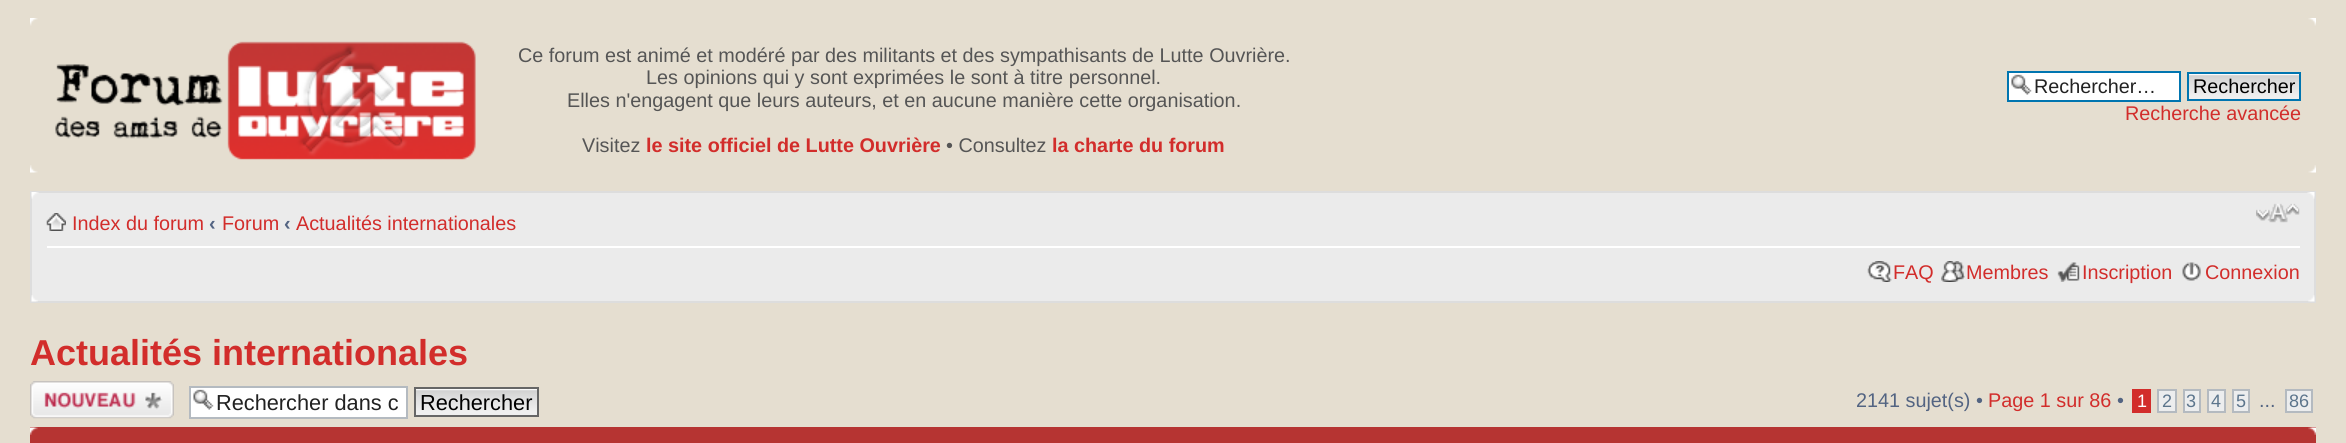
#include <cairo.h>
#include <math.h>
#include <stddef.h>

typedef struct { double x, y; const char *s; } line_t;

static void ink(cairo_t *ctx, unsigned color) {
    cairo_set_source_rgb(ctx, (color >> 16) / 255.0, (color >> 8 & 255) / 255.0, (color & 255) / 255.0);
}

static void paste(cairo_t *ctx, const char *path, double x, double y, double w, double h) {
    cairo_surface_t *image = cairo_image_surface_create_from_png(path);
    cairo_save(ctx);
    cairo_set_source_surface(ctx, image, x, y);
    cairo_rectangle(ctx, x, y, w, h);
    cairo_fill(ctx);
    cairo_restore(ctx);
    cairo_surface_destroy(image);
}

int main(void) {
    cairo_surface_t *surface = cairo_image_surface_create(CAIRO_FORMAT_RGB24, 2346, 443);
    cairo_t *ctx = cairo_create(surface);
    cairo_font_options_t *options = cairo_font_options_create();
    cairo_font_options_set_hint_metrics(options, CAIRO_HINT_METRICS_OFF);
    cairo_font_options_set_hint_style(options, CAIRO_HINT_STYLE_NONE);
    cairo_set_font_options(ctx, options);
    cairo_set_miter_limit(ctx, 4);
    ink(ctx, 0xE5DED0);
    cairo_paint(ctx);
    paste(ctx, "media/1.png", 30, 18, 8, 8);
    paste(ctx, "media/2.png", 2308, 18, 8, 8);
    paste(ctx, "media/3.png", 55, 41, 421, 119);
    cairo_select_font_face(ctx, "Liberation Sans", CAIRO_FONT_SLANT_NORMAL, CAIRO_FONT_WEIGHT_NORMAL);
    cairo_set_font_size(ctx, 19.8);
    ink(ctx, 0x555555);
    {
        static const line_t items[] = {
            {518, 62, "Ce forum est animé et modéré par des militants et des sympathisants de Lutte Ouvrière."},
            {646, 84, "Les opinions qui y sont exprimées le sont à titre personnel."},
            {567, 107, "Elles n'engagent que leurs auteurs, et en aucune manière cette organisation."},
            {582, 152, "Visitez"},
        };
        for (size_t i = 0; i < sizeof items / sizeof *items; i++) {
            cairo_move_to(ctx, items[i].x, items[i].y);
            cairo_show_text(ctx, items[i].s);
        }
    }
    cairo_select_font_face(ctx, "Liberation Sans", CAIRO_FONT_SLANT_NORMAL, CAIRO_FONT_WEIGHT_BOLD);
    ink(ctx, 0xD22D2B);
    cairo_move_to(ctx, 646, 152);
    cairo_show_text(ctx, "le site officiel de Lutte Ouvrière");
    cairo_select_font_face(ctx, "Liberation Sans", CAIRO_FONT_SLANT_NORMAL, CAIRO_FONT_WEIGHT_NORMAL);
    ink(ctx, 0x555555);
    cairo_move_to(ctx, 946, 152);
    cairo_show_text(ctx, "• Consultez");
    cairo_select_font_face(ctx, "Liberation Sans", CAIRO_FONT_SLANT_NORMAL, CAIRO_FONT_WEIGHT_BOLD);
    ink(ctx, 0xD22D2B);
    cairo_move_to(ctx, 1052, 152);
    cairo_show_text(ctx, "la charte du forum");
    ink(ctx, 0xFFFFFF);
    cairo_rectangle(ctx, 2009, 73, 170, 27);
    cairo_fill(ctx);
    paste(ctx, "media/4.png", 2011, 74, 21, 21);
    cairo_rectangle(ctx, 2008, 72, 172, 29);
    ink(ctx, 0x0075B0);
    cairo_stroke(ctx);
    cairo_select_font_face(ctx, "Liberation Sans", CAIRO_FONT_SLANT_NORMAL, CAIRO_FONT_WEIGHT_NORMAL);
    ink(ctx, 0x222222);
    cairo_move_to(ctx, 2034, 93);
    cairo_show_text(ctx, "Rechercher…");
    ink(ctx, 0xFAFAFA);
    cairo_rectangle(ctx, 2189, 74, 110, 1);
    cairo_fill(ctx);
    paste(ctx, "media/5.png", 2189, 75, 110, 24);
    cairo_rectangle(ctx, 2188, 73, 112, 27);
    ink(ctx, 0x0075B0);
    cairo_stroke(ctx);
    ink(ctx, 0x000000);
    cairo_move_to(ctx, 2193, 93);
    cairo_show_text(ctx, "Rechercher");
    ink(ctx, 0xD22D2B);
    cairo_move_to(ctx, 2125, 120);
    cairo_show_text(ctx, "Recherche avancée");
    paste(ctx, "media/6.png", 30, 165, 8, 8);
    paste(ctx, "media/7.png", 2308, 165, 8, 8);
    ink(ctx, 0xEBEBEB);
    cairo_rectangle(ctx, 31, 192, 2284, 110);
    cairo_fill_preserve(ctx);
    ink(ctx, 0xDDDDDD);
    cairo_stroke(ctx);
    paste(ctx, "media/8.png", 31, 192, 8, 7);
    paste(ctx, "media/9.png", 2307, 192, 8, 7);
    ink(ctx, 0xFFFFFF);
    cairo_rectangle(ctx, 47, 246, 2253, 2);
    cairo_fill(ctx);
    paste(ctx, "media/10.png", 46, 213, 20, 18);
    ink(ctx, 0xD22D2B);
    cairo_move_to(ctx, 72, 230);
    cairo_show_text(ctx, "Index du forum");
    cairo_select_font_face(ctx, "Liberation Sans", CAIRO_FONT_SLANT_NORMAL, CAIRO_FONT_WEIGHT_BOLD);
    ink(ctx, 0x536482);
    cairo_move_to(ctx, 209, 230);
    cairo_show_text(ctx, "‹");
    cairo_select_font_face(ctx, "Liberation Sans", CAIRO_FONT_SLANT_NORMAL, CAIRO_FONT_WEIGHT_NORMAL);
    ink(ctx, 0xD22D2B);
    cairo_move_to(ctx, 222, 230);
    cairo_show_text(ctx, "Forum");
    cairo_select_font_face(ctx, "Liberation Sans", CAIRO_FONT_SLANT_NORMAL, CAIRO_FONT_WEIGHT_BOLD);
    ink(ctx, 0x536482);
    cairo_move_to(ctx, 284, 230);
    cairo_show_text(ctx, "‹");
    cairo_select_font_face(ctx, "Liberation Sans", CAIRO_FONT_SLANT_NORMAL, CAIRO_FONT_WEIGHT_NORMAL);
    ink(ctx, 0xD22D2B);
    cairo_move_to(ctx, 296, 230);
    cairo_show_text(ctx, "Actualités internationales");
    paste(ctx, "media/11.png", 2256, 203, 44, 20);
    paste(ctx, "media/12.png", 1867, 261, 25, 21);
    cairo_move_to(ctx, 1893, 279);
    cairo_show_text(ctx, "FAQ");
    paste(ctx, "media/13.png", 1941, 261, 24, 21);
    cairo_move_to(ctx, 1966, 279);
    cairo_show_text(ctx, "Membres");
    paste(ctx, "media/14.png", 2057, 262, 23, 20);
    cairo_move_to(ctx, 2082, 279);
    cairo_show_text(ctx, "Inscription");
    paste(ctx, "media/15.png", 2182, 262, 19, 19);
    cairo_move_to(ctx, 2205, 279);
    cairo_show_text(ctx, "Connexion");
    paste(ctx, "media/16.png", 31, 295, 7, 7);
    paste(ctx, "media/17.png", 2308, 295, 7, 7);
    cairo_select_font_face(ctx, "Liberation Sans", CAIRO_FONT_SLANT_NORMAL, CAIRO_FONT_WEIGHT_BOLD);
    cairo_set_font_size(ctx, 36);
    cairo_move_to(ctx, 30, 365);
    cairo_show_text(ctx, "Actualités internationales");
    paste(ctx, "media/18.png", 30, 381, 144, 38);
    ink(ctx, 0xFFFFFF);
    cairo_rectangle(ctx, 191, 388, 215, 29);
    cairo_fill(ctx);
    paste(ctx, "media/4.png", 193, 389, 21, 21);
    cairo_rectangle(ctx, 190, 387, 217, 31);
    ink(ctx, 0xB4BAC0);
    cairo_stroke(ctx);
    cairo_select_font_face(ctx, "Liberation Sans", CAIRO_FONT_SLANT_NORMAL, CAIRO_FONT_WEIGHT_NORMAL);
    cairo_set_font_size(ctx, 21.75);
    ink(ctx, 0x222222);
    cairo_move_to(ctx, 216, 410);
    cairo_show_text(ctx, "Rechercher dans c");
    ink(ctx, 0xFAFAFA);
    cairo_rectangle(ctx, 416, 389, 121, 1);
    cairo_fill(ctx);
    paste(ctx, "media/19.png", 416, 390, 121, 25);
    cairo_rectangle(ctx, 415, 388, 123, 28);
    ink(ctx, 0x666666);
    cairo_stroke(ctx);
    ink(ctx, 0x000000);
    cairo_move_to(ctx, 420, 410);
    cairo_show_text(ctx, "Rechercher");
    cairo_set_font_size(ctx, 19.8);
    ink(ctx, 0x536482);
    cairo_move_to(ctx, 1856, 407);
    cairo_show_text(ctx, "2141 sujet(s) •");
    ink(ctx, 0xD22D2B);
    cairo_move_to(ctx, 1988, 407);
    cairo_show_text(ctx, "Page 1 sur 86");
    ink(ctx, 0x536482);
    cairo_move_to(ctx, 2117, 407);
    cairo_show_text(ctx, "•");
    ink(ctx, 0xD22D2B);
    cairo_rectangle(ctx, 2132, 389, 19, 24);
    cairo_fill(ctx);
    cairo_set_font_size(ctx, 18);
    ink(ctx, 0xFFFFFF);
    cairo_move_to(ctx, 2137, 407);
    cairo_show_text(ctx, "1");
    ink(ctx, 0xECEDEE);
    cairo_rectangle(ctx, 2158, 390, 18, 22);
    cairo_fill_preserve(ctx);
    ink(ctx, 0xB4BAC0);
    cairo_stroke(ctx);
    ink(ctx, 0x5C758C);
    cairo_move_to(ctx, 2162, 407);
    cairo_show_text(ctx, "2");
    ink(ctx, 0xECEDEE);
    cairo_rectangle(ctx, 2184, 390, 16, 22);
    cairo_fill_preserve(ctx);
    ink(ctx, 0xB4BAC0);
    cairo_stroke(ctx);
    ink(ctx, 0x5C758C);
    cairo_move_to(ctx, 2186, 407);
    cairo_show_text(ctx, "3");
    ink(ctx, 0xECEDEE);
    cairo_rectangle(ctx, 2208, 390, 17, 22);
    cairo_fill_preserve(ctx);
    ink(ctx, 0xB4BAC0);
    cairo_stroke(ctx);
    ink(ctx, 0x5C758C);
    cairo_move_to(ctx, 2211, 407);
    cairo_show_text(ctx, "4");
    ink(ctx, 0xECEDEE);
    cairo_rectangle(ctx, 2233, 390, 16, 22);
    cairo_fill_preserve(ctx);
    ink(ctx, 0xB4BAC0);
    cairo_stroke(ctx);
    ink(ctx, 0x5C758C);
    cairo_move_to(ctx, 2236, 407);
    cairo_show_text(ctx, "5");
    ink(ctx, 0xECEDEE);
    cairo_rectangle(ctx, 2286, 390, 26, 22);
    cairo_fill_preserve(ctx);
    ink(ctx, 0xB4BAC0);
    cairo_stroke(ctx);
    ink(ctx, 0x5C758C);
    cairo_move_to(ctx, 2289, 407);
    cairo_show_text(ctx, "86");
    cairo_set_font_size(ctx, 19.8);
    ink(ctx, 0x536482);
    cairo_move_to(ctx, 2259, 407);
    cairo_show_text(ctx, "...");
    ink(ctx, 0xB63432);
    cairo_rectangle(ctx, 30, 427, 2286, 16);
    cairo_fill(ctx);
    paste(ctx, "media/20.png", 30, 427, 8, 8);
    paste(ctx, "media/21.png", 2308, 427, 8, 8);
    cairo_surface_write_to_png(surface, "image.png");
    cairo_font_options_destroy(options);
    cairo_destroy(ctx);
    cairo_surface_destroy(surface);
    return 0;
}
